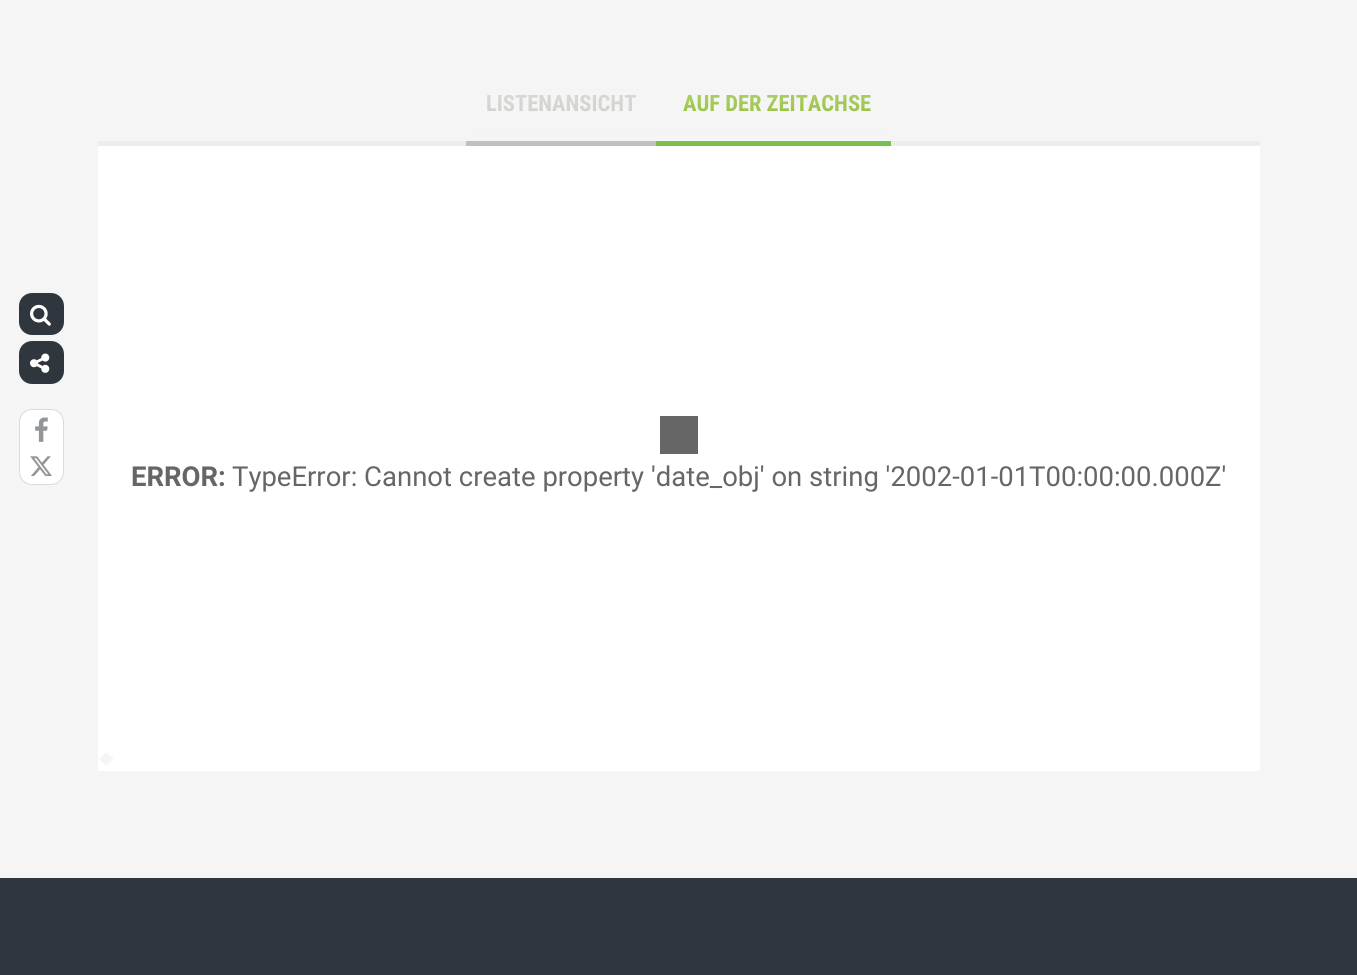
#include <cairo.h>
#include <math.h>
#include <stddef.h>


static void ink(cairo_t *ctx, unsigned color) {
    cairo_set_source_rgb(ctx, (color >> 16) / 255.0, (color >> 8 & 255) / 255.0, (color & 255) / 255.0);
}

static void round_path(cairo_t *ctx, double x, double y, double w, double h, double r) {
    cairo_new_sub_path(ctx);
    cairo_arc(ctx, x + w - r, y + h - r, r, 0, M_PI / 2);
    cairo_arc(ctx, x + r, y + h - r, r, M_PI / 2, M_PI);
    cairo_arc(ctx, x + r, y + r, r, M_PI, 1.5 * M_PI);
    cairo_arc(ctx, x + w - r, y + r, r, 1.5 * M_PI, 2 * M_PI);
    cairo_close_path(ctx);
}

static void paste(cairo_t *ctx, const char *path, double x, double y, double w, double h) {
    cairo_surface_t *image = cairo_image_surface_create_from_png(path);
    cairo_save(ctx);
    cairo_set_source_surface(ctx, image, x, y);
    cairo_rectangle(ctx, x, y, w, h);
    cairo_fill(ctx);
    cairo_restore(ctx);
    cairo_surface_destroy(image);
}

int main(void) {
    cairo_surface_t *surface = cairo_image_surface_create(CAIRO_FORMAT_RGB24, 1357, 975);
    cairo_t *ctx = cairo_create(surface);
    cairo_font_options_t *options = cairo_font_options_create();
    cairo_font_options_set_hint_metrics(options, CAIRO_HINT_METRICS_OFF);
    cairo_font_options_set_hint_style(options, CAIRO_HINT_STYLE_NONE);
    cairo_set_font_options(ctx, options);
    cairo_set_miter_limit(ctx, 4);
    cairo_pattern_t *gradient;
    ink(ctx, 0xF5F5F5);
    cairo_paint(ctx);
    ink(ctx, 0xEDECE7);
    cairo_rectangle(ctx, 98, 141, 1162, 5);
    cairo_fill(ctx);
    ink(ctx, 0xBCBFC2);
    cairo_rectangle(ctx, 466, 141, 190, 5);
    cairo_fill(ctx);
    cairo_select_font_face(ctx, "Roboto Condensed", CAIRO_FONT_SLANT_NORMAL, CAIRO_FONT_WEIGHT_BOLD);
    cairo_set_font_size(ctx, 22.5);
    ink(ctx, 0xC6C5C0);
    cairo_move_to(ctx, 486, 111);
    cairo_show_text(ctx, "LISTENANSICHT");
    ink(ctx, 0x72BE44);
    cairo_rectangle(ctx, 656, 141, 235, 5);
    cairo_fill(ctx);
    ink(ctx, 0x7CB309);
    cairo_move_to(ctx, 683, 111);
    cairo_show_text(ctx, "AUF DER ZEITACHSE");
    ink(ctx, 0xFFFFFF);
    cairo_rectangle(ctx, 98, 146, 1162, 625);
    cairo_fill(ctx);
    ink(ctx, 0x666666);
    cairo_rectangle(ctx, 660, 416, 38, 38);
    cairo_fill(ctx);
    cairo_select_font_face(ctx, "Roboto", CAIRO_FONT_SLANT_NORMAL, CAIRO_FONT_WEIGHT_BOLD);
    cairo_set_font_size(ctx, 27.5);
    cairo_move_to(ctx, 131, 486);
    cairo_show_text(ctx, "ERROR:");
    cairo_select_font_face(ctx, "Roboto", CAIRO_FONT_SLANT_NORMAL, CAIRO_FONT_WEIGHT_NORMAL);
    cairo_move_to(ctx, 232, 486);
    cairo_show_text(ctx, "TypeError: Cannot create property 'date_obj' on string '2002-01-01T00:00:00.000Z'");
    ink(ctx, 0xF5F5F5);
    cairo_new_path(ctx);
    cairo_move_to(ctx, 106.5, 752);
    cairo_line_to(ctx, 113.5, 759);
    cairo_line_to(ctx, 106.5, 766);
    cairo_line_to(ctx, 99, 759);
    cairo_close_path(ctx);
    cairo_fill(ctx);
    ink(ctx, 0x30363D);
    cairo_rectangle(ctx, 0, 878, 1357, 97);
    cairo_fill(ctx);
    gradient = cairo_pattern_create_linear(679, 0, 679, 150);
    cairo_pattern_add_color_stop_rgba(gradient, 0.1, 0.961, 0.961, 0.961, 0.95);
    cairo_pattern_add_color_stop_rgba(gradient, 1, 0.961, 0.961, 0.961, 0);
    cairo_set_source(ctx, gradient);
    cairo_pattern_destroy(gradient);
    cairo_rectangle(ctx, 466, 94, 425, 52);
    cairo_fill(ctx);
    ink(ctx, 0x30363D);
    round_path(ctx, 19, 293, 45, 42, 13);
    cairo_fill(ctx);
    paste(ctx, "media/1.png", 30, 304, 21, 22);
    round_path(ctx, 19, 341, 45, 43, 13);
    cairo_fill(ctx);
    paste(ctx, "media/2.png", 30, 353, 20, 20);
    ink(ctx, 0xFFFFFF);
    round_path(ctx, 19.5, 409.5, 44, 75, 12.5);
    cairo_fill_preserve(ctx);
    ink(ctx, 0xD9DADB);
    cairo_set_line_width(ctx, 1);
    cairo_stroke(ctx);
    paste(ctx, "media/3.png", 35, 417, 13, 25);
    paste(ctx, "media/4.png", 30, 456, 22, 20);
    cairo_surface_write_to_png(surface, "image.png");
    cairo_font_options_destroy(options);
    cairo_destroy(ctx);
    cairo_surface_destroy(surface);
    return 0;
}
